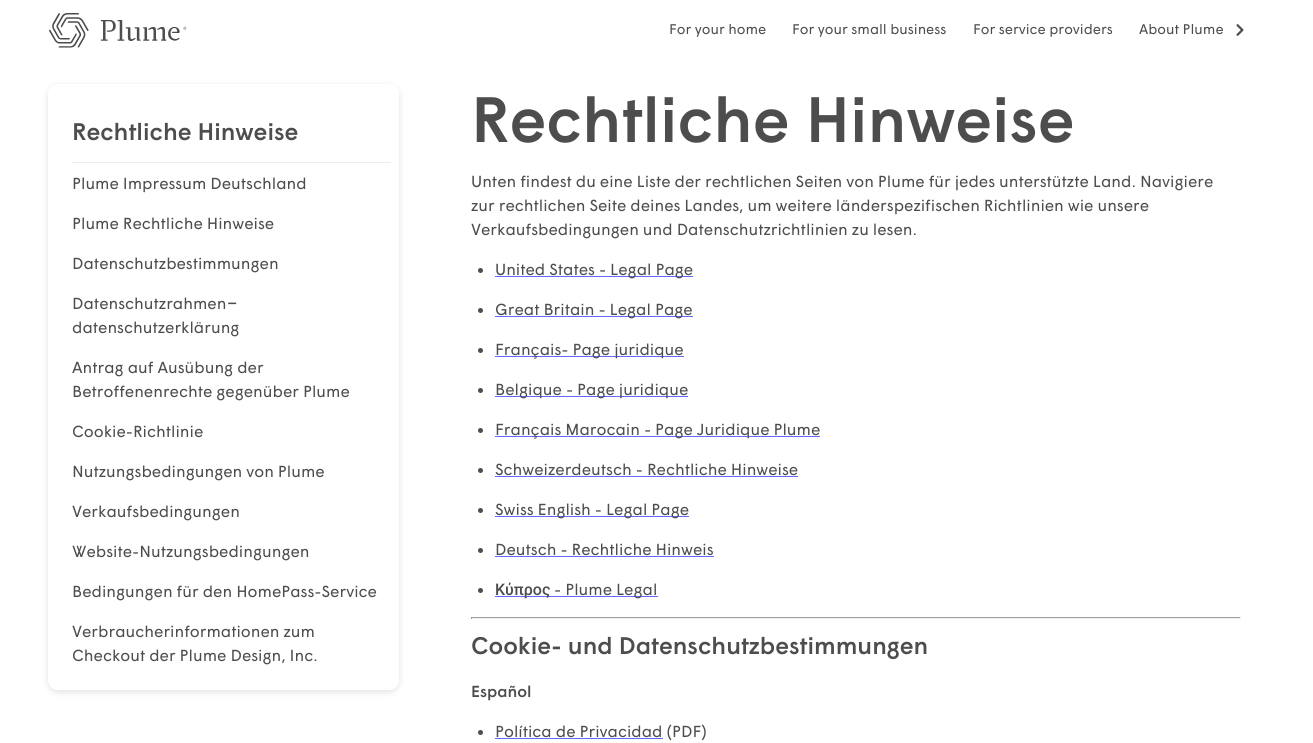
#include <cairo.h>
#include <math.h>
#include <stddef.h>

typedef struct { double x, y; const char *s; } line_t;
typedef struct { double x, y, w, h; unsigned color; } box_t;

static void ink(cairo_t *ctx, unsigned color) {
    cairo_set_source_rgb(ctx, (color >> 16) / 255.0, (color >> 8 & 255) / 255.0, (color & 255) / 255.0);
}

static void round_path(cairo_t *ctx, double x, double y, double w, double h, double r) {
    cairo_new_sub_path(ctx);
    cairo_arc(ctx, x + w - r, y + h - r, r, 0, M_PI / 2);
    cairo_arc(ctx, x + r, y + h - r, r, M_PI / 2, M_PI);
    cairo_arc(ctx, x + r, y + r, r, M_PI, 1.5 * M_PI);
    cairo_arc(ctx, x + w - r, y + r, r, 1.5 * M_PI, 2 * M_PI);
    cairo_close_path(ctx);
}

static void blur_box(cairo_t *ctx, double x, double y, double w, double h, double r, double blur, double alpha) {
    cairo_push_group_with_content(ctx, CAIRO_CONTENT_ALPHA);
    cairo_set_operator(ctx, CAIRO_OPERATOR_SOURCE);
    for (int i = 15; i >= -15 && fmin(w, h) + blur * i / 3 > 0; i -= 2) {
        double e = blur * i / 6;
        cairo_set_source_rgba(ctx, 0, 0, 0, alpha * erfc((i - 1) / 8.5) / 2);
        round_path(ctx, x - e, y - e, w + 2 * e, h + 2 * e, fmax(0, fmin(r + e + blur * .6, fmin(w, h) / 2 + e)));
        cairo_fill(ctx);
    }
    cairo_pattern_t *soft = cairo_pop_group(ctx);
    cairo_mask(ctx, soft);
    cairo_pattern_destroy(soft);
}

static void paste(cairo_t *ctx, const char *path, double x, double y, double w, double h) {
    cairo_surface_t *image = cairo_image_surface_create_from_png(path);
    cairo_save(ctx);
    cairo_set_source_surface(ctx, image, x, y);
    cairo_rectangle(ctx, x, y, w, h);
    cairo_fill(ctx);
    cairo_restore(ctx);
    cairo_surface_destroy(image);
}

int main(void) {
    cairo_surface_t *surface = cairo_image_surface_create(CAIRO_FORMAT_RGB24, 1313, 743);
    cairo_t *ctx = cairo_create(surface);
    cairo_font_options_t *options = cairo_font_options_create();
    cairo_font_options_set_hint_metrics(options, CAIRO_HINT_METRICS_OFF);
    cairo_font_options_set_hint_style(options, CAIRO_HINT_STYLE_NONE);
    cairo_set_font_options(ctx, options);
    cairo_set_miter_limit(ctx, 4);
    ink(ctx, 0xFFFFFF);
    cairo_paint(ctx);
    paste(ctx, "media/1.png", 49, 13, 138, 35);
    cairo_select_font_face(ctx, "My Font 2", CAIRO_FONT_SLANT_NORMAL, CAIRO_FONT_WEIGHT_NORMAL);
    cairo_set_font_size(ctx, 14);
    ink(ctx, 0x4D4D4D);
    {
        static const line_t items[] = {
            {669, 34, "For your home"},
            {792, 34, "For your small business"},
            {973, 34, "For service providers"},
            {1139, 34, "About Plume"},
        };
        for (size_t i = 0; i < sizeof items / sizeof *items; i++) {
            cairo_move_to(ctx, items[i].x, items[i].y);
            cairo_show_text(ctx, items[i].s);
        }
    }
    paste(ctx, "media/2.png", 1236, 24, 8, 12);
    cairo_save(ctx);
    cairo_set_fill_rule(ctx, CAIRO_FILL_RULE_EVEN_ODD);
    cairo_new_path(ctx);
    cairo_move_to(ctx, 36, 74);
    cairo_line_to(ctx, 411, 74);
    cairo_line_to(ctx, 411, 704);
    cairo_line_to(ctx, 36, 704);
    cairo_close_path(ctx);
    cairo_move_to(ctx, 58, 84);
    cairo_line_to(ctx, 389, 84);
    cairo_curve_to(ctx, 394.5, 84, 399, 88.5, 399, 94);
    cairo_line_to(ctx, 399, 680);
    cairo_curve_to(ctx, 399, 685.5, 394.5, 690, 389, 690);
    cairo_line_to(ctx, 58, 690);
    cairo_curve_to(ctx, 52.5, 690, 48, 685.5, 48, 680);
    cairo_line_to(ctx, 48, 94);
    cairo_curve_to(ctx, 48, 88.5, 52.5, 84, 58, 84);
    cairo_close_path(ctx);
    cairo_clip(ctx);
    ink(ctx, 0x000000);
    blur_box(ctx, 48, 86, 351, 606, 10, 3.5, 0.12);
    cairo_restore(ctx);
    cairo_select_font_face(ctx, "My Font", CAIRO_FONT_SLANT_NORMAL, CAIRO_FONT_WEIGHT_NORMAL);
    cairo_set_font_size(ctx, 24);
    cairo_move_to(ctx, 72, 140);
    cairo_show_text(ctx, "Rechtliche Hinweise");
    ink(ctx, 0xEBEBEB);
    cairo_rectangle(ctx, 72, 162, 319, 1);
    cairo_fill(ctx);
    cairo_select_font_face(ctx, "My Font 2", CAIRO_FONT_SLANT_NORMAL, CAIRO_FONT_WEIGHT_NORMAL);
    cairo_set_font_size(ctx, 16);
    ink(ctx, 0x4D4D4D);
    {
        static const line_t items[] = {
            {72, 189, "Plume Impressum Deutschland"},
            {72, 229, "Plume Rechtliche Hinweise"},
            {72, 269, "Datenschutzbestimmungen"},
            {72, 309, "Datenschutzrahmen"},
        };
        for (size_t i = 0; i < sizeof items / sizeof *items; i++) {
            cairo_move_to(ctx, items[i].x, items[i].y);
            cairo_show_text(ctx, items[i].s);
        }
    }
    cairo_select_font_face(ctx, "Roboto Medium", CAIRO_FONT_SLANT_NORMAL, CAIRO_FONT_WEIGHT_NORMAL);
    cairo_move_to(ctx, 227, 309);
    cairo_show_text(ctx, "–");
    cairo_select_font_face(ctx, "My Font 2", CAIRO_FONT_SLANT_NORMAL, CAIRO_FONT_WEIGHT_NORMAL);
    {
        static const line_t items[] = {
            {72, 333, "datenschutzerklärung"},
            {72, 373, "Antrag auf Ausübung der"},
            {72, 397, "Betroffenenrechte gegenüber Plume"},
            {72, 437, "Cookie-Richtlinie"},
            {72, 477, "Nutzungsbedingungen von Plume"},
            {72, 517, "Verkaufsbedingungen"},
            {72, 557, "Website-Nutzungsbedingungen"},
            {72, 597, "Bedingungen für den HomePass-Service"},
            {72, 637, "Verbraucherinformationen zum"},
            {72, 661, "Checkout der Plume Design, Inc."},
        };
        for (size_t i = 0; i < sizeof items / sizeof *items; i++) {
            cairo_move_to(ctx, items[i].x, items[i].y);
            cairo_show_text(ctx, items[i].s);
        }
    }
    cairo_select_font_face(ctx, "My Font", CAIRO_FONT_SLANT_NORMAL, CAIRO_FONT_WEIGHT_NORMAL);
    cairo_set_font_size(ctx, 64);
    cairo_move_to(ctx, 471, 142);
    cairo_show_text(ctx, "Rechtliche Hinweise");
    cairo_select_font_face(ctx, "My Font 2", CAIRO_FONT_SLANT_NORMAL, CAIRO_FONT_WEIGHT_NORMAL);
    cairo_set_font_size(ctx, 16);
    {
        static const line_t items[] = {
            {471, 187, "Unten findest du eine Liste der rechtlichen Seiten von Plume für jedes unterstützte Land. Navigiere"},
            {471, 211, "zur rechtlichen Seite deines Landes, um weitere länderspezifischen Richtlinien wie unsere"},
            {471, 235, "Verkaufsbedingungen und Datenschutzrichtlinien zu lesen."},
        };
        for (size_t i = 0; i < sizeof items / sizeof *items; i++) {
            cairo_move_to(ctx, items[i].x, items[i].y);
            cairo_show_text(ctx, items[i].s);
        }
    }
    cairo_new_path(ctx);
    cairo_arc(ctx, 480.5, 270.5, 2.5, 0, 2 * M_PI);
    cairo_fill(ctx);
    ink(ctx, 0x6269FF);
    cairo_rectangle(ctx, 495, 276, 198, 1);
    cairo_fill(ctx);
    ink(ctx, 0x4D4D4D);
    cairo_move_to(ctx, 495, 275);
    cairo_show_text(ctx, "United States - Legal Page");
    cairo_new_path(ctx);
    cairo_arc(ctx, 480.5, 310.5, 2.5, 0, 2 * M_PI);
    cairo_fill(ctx);
    ink(ctx, 0x6269FF);
    cairo_rectangle(ctx, 495, 316, 198, 1);
    cairo_fill(ctx);
    ink(ctx, 0x4D4D4D);
    cairo_move_to(ctx, 495, 315);
    cairo_show_text(ctx, "Great Britain - Legal Page");
    cairo_new_path(ctx);
    cairo_arc(ctx, 480.5, 350.5, 2.5, 0, 2 * M_PI);
    cairo_fill(ctx);
    ink(ctx, 0x6269FF);
    cairo_rectangle(ctx, 495, 356, 189, 1);
    cairo_fill(ctx);
    ink(ctx, 0x4D4D4D);
    cairo_move_to(ctx, 495, 355);
    cairo_show_text(ctx, "Français- Page juridique");
    cairo_new_path(ctx);
    cairo_arc(ctx, 480.5, 390.5, 2.5, 0, 2 * M_PI);
    cairo_fill(ctx);
    ink(ctx, 0x6269FF);
    cairo_rectangle(ctx, 495, 396, 193, 1);
    cairo_fill(ctx);
    ink(ctx, 0x4D4D4D);
    cairo_move_to(ctx, 495, 395);
    cairo_show_text(ctx, "Belgique - Page juridique");
    cairo_new_path(ctx);
    cairo_arc(ctx, 480.5, 430.5, 2.5, 0, 2 * M_PI);
    cairo_fill(ctx);
    ink(ctx, 0x6269FF);
    cairo_rectangle(ctx, 495, 436, 325, 1);
    cairo_fill(ctx);
    ink(ctx, 0x4D4D4D);
    cairo_move_to(ctx, 495, 435);
    cairo_show_text(ctx, "Français Marocain - Page Juridique Plume");
    cairo_new_path(ctx);
    cairo_arc(ctx, 480.5, 470.5, 2.5, 0, 2 * M_PI);
    cairo_fill(ctx);
    cairo_move_to(ctx, 495, 475);
    cairo_show_text(ctx, "Schweizerdeutsch - Rechtliche Hinweise");
    ink(ctx, 0x6269FF);
    cairo_rectangle(ctx, 495, 476, 303, 1);
    cairo_fill(ctx);
    ink(ctx, 0x4D4D4D);
    cairo_arc(ctx, 480.5, 510.5, 2.5, 0, 2 * M_PI);
    cairo_fill(ctx);
    ink(ctx, 0x6269FF);
    cairo_rectangle(ctx, 495, 516, 194, 1);
    cairo_fill(ctx);
    ink(ctx, 0x4D4D4D);
    cairo_move_to(ctx, 495, 515);
    cairo_show_text(ctx, "Swiss English - Legal Page");
    cairo_new_path(ctx);
    cairo_arc(ctx, 480.5, 550.5, 2.5, 0, 2 * M_PI);
    cairo_fill(ctx);
    cairo_move_to(ctx, 495, 555);
    cairo_show_text(ctx, "Deutsch - Rechtliche Hinweis");
    ink(ctx, 0x6269FF);
    cairo_rectangle(ctx, 495, 556, 219, 1);
    cairo_fill(ctx);
    ink(ctx, 0x4D4D4D);
    cairo_arc(ctx, 480.5, 590.5, 2.5, 0, 2 * M_PI);
    cairo_fill(ctx);
    ink(ctx, 0x6269FF);
    cairo_rectangle(ctx, 495, 596, 163, 1);
    cairo_fill(ctx);
    cairo_select_font_face(ctx, "Roboto Medium", CAIRO_FONT_SLANT_NORMAL, CAIRO_FONT_WEIGHT_NORMAL);
    ink(ctx, 0x4D4D4D);
    cairo_move_to(ctx, 495, 595);
    cairo_show_text(ctx, "Κύπρος");
    cairo_select_font_face(ctx, "My Font 2", CAIRO_FONT_SLANT_NORMAL, CAIRO_FONT_WEIGHT_NORMAL);
    cairo_move_to(ctx, 554, 595);
    cairo_show_text(ctx, "- Plume Legal");
    {
        static const box_t items[] = {
            {471, 617, 770, 1, 0x9F9F9F},
            {1240, 617, 1, 2, 0xEEEEEE},
            {471, 618, 770, 1, 0xEEEEEE},
            {471, 617, 1, 2, 0x9F9F9F},
        };
        for (size_t i = 0; i < sizeof items / sizeof *items; i++) {
            ink(ctx, items[i].color);
            cairo_rectangle(ctx, items[i].x, items[i].y, items[i].w, items[i].h);
            cairo_fill(ctx);
        }
    }
    cairo_select_font_face(ctx, "My Font", CAIRO_FONT_SLANT_NORMAL, CAIRO_FONT_WEIGHT_NORMAL);
    cairo_set_font_size(ctx, 24);
    ink(ctx, 0x4D4D4D);
    cairo_move_to(ctx, 471, 654);
    cairo_show_text(ctx, "Cookie- und Datenschutzbestimmungen");
    cairo_set_font_size(ctx, 16);
    cairo_move_to(ctx, 471, 697);
    cairo_show_text(ctx, "Español");
    cairo_new_path(ctx);
    cairo_arc(ctx, 480.5, 732.5, 2.5, 0, 2 * M_PI);
    cairo_fill(ctx);
    ink(ctx, 0x6269FF);
    cairo_rectangle(ctx, 495, 738, 168, 1);
    cairo_fill(ctx);
    cairo_select_font_face(ctx, "My Font 2", CAIRO_FONT_SLANT_NORMAL, CAIRO_FONT_WEIGHT_NORMAL);
    ink(ctx, 0x4D4D4D);
    cairo_move_to(ctx, 495, 737);
    cairo_show_text(ctx, "Política de Privacidad (PDF)");
    cairo_surface_write_to_png(surface, "image.png");
    cairo_font_options_destroy(options);
    cairo_destroy(ctx);
    cairo_surface_destroy(surface);
    return 0;
}
